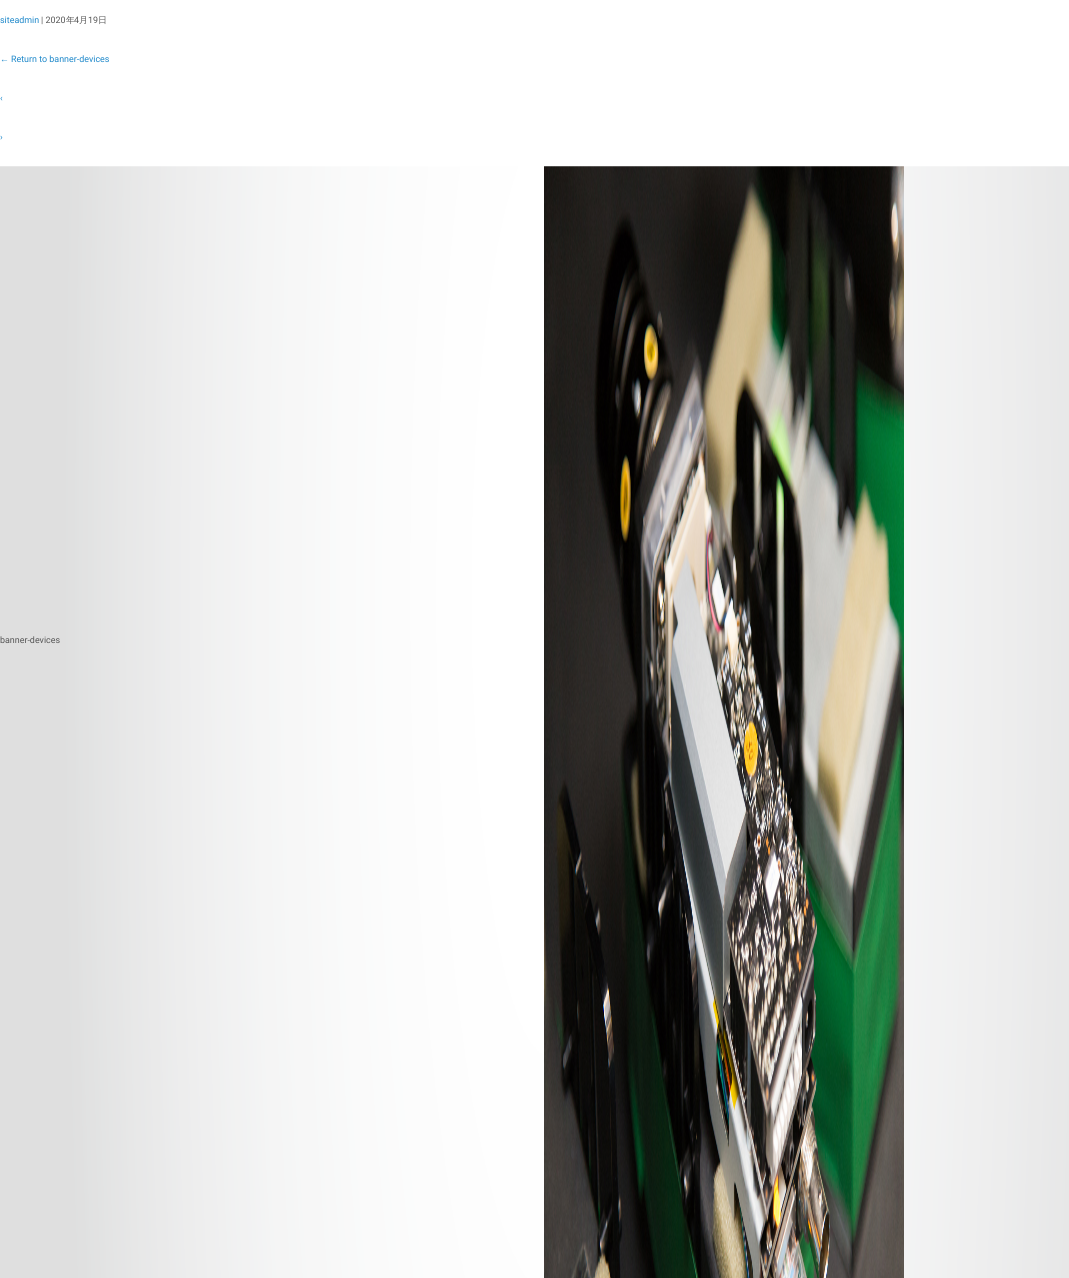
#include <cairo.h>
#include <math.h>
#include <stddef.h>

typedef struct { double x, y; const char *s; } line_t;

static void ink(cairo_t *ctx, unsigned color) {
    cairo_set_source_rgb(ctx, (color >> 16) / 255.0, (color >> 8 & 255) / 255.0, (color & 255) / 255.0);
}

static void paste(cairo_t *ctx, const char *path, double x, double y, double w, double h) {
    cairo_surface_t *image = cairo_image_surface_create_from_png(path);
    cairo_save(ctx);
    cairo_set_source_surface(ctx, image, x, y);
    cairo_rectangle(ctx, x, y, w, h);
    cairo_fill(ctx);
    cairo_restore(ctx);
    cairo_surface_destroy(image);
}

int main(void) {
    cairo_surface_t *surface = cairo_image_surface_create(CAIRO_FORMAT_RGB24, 1069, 1278);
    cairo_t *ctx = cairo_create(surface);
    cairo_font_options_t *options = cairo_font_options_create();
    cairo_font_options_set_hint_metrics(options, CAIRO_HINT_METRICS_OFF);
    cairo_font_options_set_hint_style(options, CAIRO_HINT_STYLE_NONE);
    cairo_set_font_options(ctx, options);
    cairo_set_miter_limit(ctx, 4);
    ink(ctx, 0xFFFFFF);
    cairo_paint(ctx);
    cairo_select_font_face(ctx, "Roboto", CAIRO_FONT_SLANT_NORMAL, CAIRO_FONT_WEIGHT_NORMAL);
    cairo_set_font_size(ctx, 8.9);
    ink(ctx, 0x1E88CA);
    cairo_move_to(ctx, 0, 23);
    cairo_show_text(ctx, "siteadmin");
    ink(ctx, 0x575757);
    cairo_move_to(ctx, 41, 23);
    cairo_show_text(ctx, "| 2020");
    cairo_select_font_face(ctx, "WenQuanYi Zen Hei Medium", CAIRO_FONT_SLANT_NORMAL, CAIRO_FONT_WEIGHT_NORMAL);
    cairo_move_to(ctx, 66, 23);
    cairo_show_text(ctx, "年");
    cairo_select_font_face(ctx, "Roboto", CAIRO_FONT_SLANT_NORMAL, CAIRO_FONT_WEIGHT_NORMAL);
    cairo_move_to(ctx, 74, 23);
    cairo_show_text(ctx, "4");
    cairo_select_font_face(ctx, "WenQuanYi Zen Hei Medium", CAIRO_FONT_SLANT_NORMAL, CAIRO_FONT_WEIGHT_NORMAL);
    cairo_move_to(ctx, 79, 23);
    cairo_show_text(ctx, "月");
    cairo_select_font_face(ctx, "Roboto", CAIRO_FONT_SLANT_NORMAL, CAIRO_FONT_WEIGHT_NORMAL);
    cairo_move_to(ctx, 88, 23);
    cairo_show_text(ctx, "19");
    cairo_select_font_face(ctx, "WenQuanYi Zen Hei Medium", CAIRO_FONT_SLANT_NORMAL, CAIRO_FONT_WEIGHT_NORMAL);
    cairo_move_to(ctx, 98, 23);
    cairo_show_text(ctx, "日");
    cairo_select_font_face(ctx, "Liberation Sans", CAIRO_FONT_SLANT_NORMAL, CAIRO_FONT_WEIGHT_NORMAL);
    ink(ctx, 0x1E88CA);
    cairo_move_to(ctx, 0, 62);
    cairo_show_text(ctx, "←");
    cairo_select_font_face(ctx, "Roboto", CAIRO_FONT_SLANT_NORMAL, CAIRO_FONT_WEIGHT_NORMAL);
    {
        static const line_t items[] = {
            {11, 62, "Return to banner-devices"},
            {0, 101, "‹"},
            {0, 140, "›"},
        };
        for (size_t i = 0; i < sizeof items / sizeof *items; i++) {
            cairo_move_to(ctx, items[i].x, items[i].y);
            cairo_show_text(ctx, items[i].s);
        }
    }
    paste(ctx, "media/1.png", 0, 166, 1069, 1112);
    ink(ctx, 0x575757);
    cairo_move_to(ctx, 0, 643);
    cairo_show_text(ctx, "banner-devices");
    cairo_surface_write_to_png(surface, "image.png");
    cairo_font_options_destroy(options);
    cairo_destroy(ctx);
    cairo_surface_destroy(surface);
    return 0;
}
